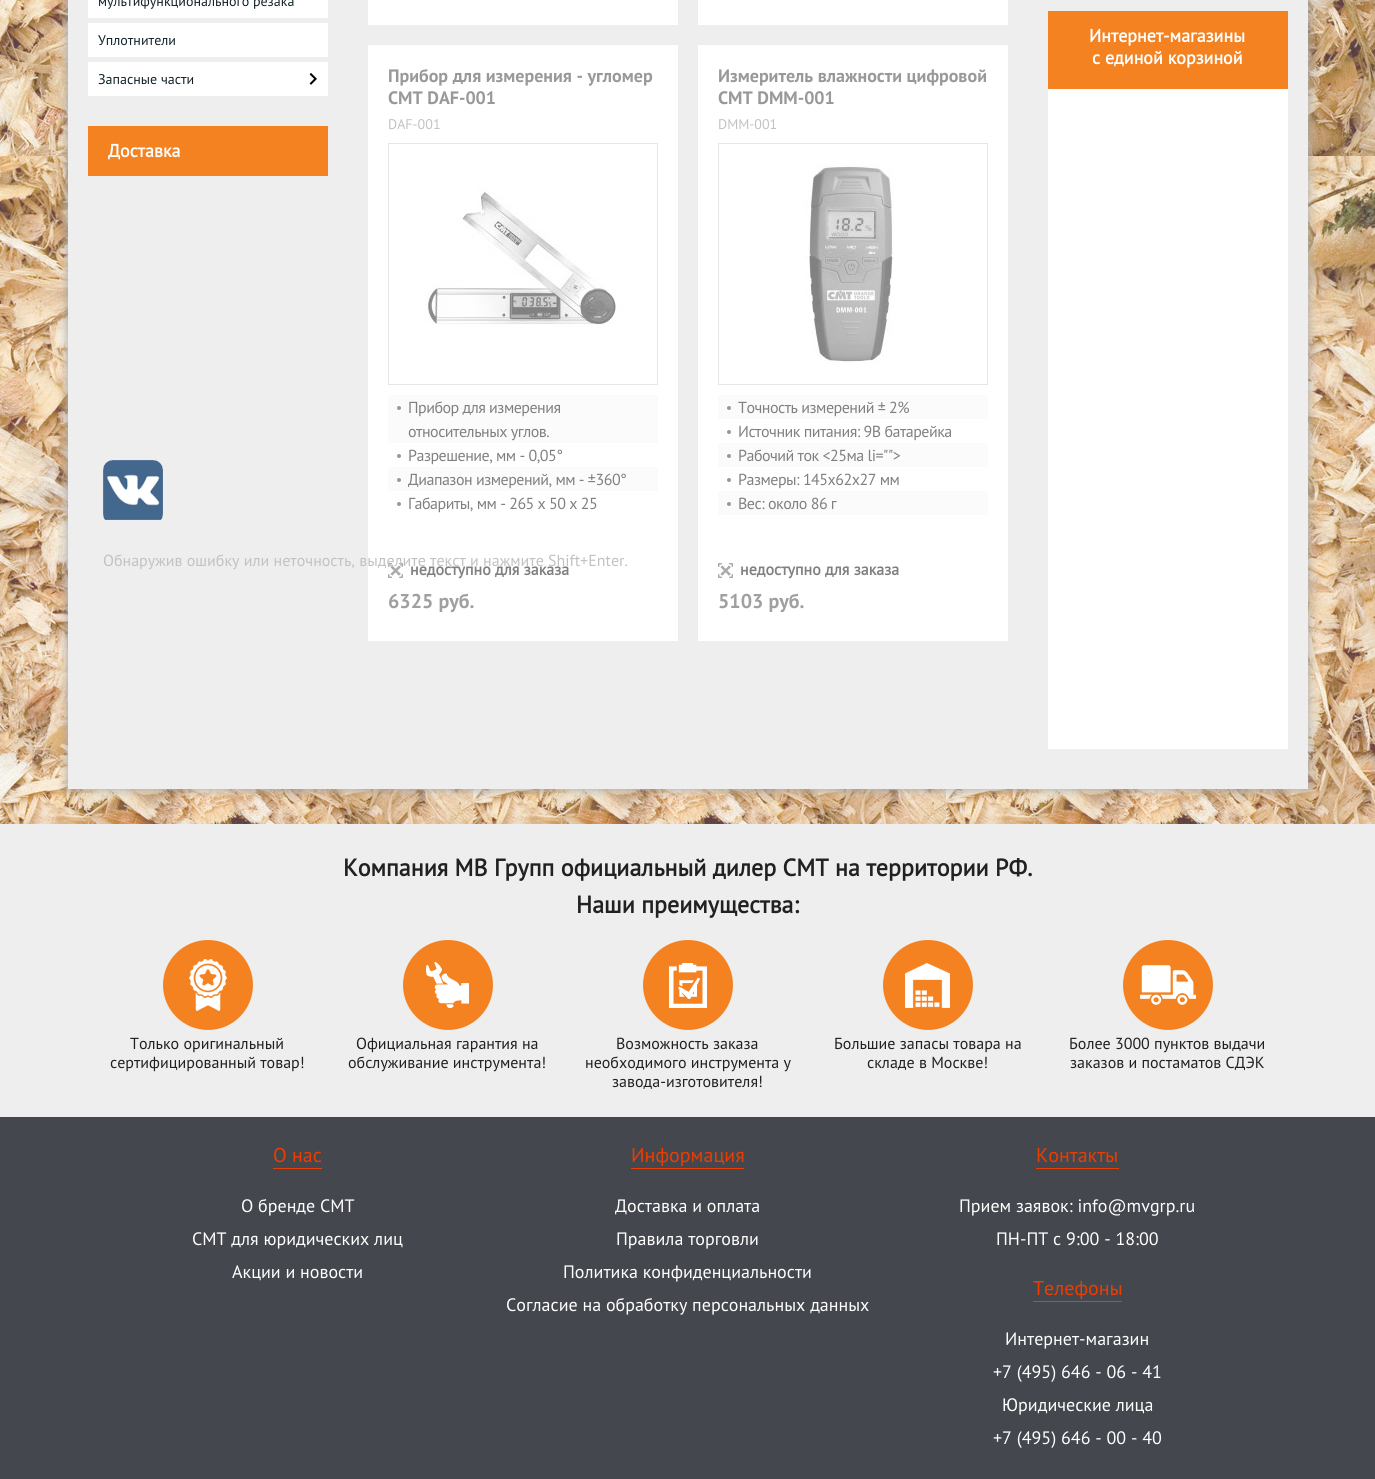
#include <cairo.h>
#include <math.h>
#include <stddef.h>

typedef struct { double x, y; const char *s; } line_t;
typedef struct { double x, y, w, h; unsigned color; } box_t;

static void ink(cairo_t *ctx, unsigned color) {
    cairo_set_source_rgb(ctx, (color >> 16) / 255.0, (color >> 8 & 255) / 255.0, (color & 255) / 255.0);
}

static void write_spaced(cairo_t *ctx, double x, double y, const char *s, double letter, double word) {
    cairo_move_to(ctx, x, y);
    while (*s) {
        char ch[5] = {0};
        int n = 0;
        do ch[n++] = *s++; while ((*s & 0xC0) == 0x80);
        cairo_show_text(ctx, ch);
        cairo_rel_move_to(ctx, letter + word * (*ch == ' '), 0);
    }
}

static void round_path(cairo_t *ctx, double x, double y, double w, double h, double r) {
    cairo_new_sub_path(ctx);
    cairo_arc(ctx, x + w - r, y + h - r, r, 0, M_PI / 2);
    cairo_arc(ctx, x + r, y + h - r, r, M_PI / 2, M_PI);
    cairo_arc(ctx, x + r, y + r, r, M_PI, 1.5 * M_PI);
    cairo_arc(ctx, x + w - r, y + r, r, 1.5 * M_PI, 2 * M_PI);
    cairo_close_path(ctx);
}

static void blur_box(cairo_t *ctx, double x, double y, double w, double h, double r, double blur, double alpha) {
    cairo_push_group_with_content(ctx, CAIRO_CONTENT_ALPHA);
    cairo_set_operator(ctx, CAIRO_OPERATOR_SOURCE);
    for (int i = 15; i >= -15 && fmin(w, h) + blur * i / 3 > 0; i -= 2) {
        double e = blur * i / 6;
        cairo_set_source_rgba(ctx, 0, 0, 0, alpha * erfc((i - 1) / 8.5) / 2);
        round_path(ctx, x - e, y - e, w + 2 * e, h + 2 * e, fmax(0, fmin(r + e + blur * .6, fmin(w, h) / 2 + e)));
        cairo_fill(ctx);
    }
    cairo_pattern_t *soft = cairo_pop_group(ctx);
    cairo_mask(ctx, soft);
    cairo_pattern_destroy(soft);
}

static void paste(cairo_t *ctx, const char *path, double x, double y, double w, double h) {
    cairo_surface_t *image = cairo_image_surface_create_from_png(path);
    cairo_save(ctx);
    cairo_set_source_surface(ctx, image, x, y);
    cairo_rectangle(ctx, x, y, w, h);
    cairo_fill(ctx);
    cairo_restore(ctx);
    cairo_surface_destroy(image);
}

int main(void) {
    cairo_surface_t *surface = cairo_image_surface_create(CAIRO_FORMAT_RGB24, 1375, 1479);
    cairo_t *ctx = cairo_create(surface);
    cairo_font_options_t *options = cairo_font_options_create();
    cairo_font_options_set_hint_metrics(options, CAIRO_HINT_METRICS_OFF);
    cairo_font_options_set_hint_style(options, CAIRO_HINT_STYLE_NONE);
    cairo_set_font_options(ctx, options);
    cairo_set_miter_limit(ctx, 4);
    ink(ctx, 0xFFFFFF);
    cairo_paint(ctx);
    paste(ctx, "media/1.png", 0, 0, 1375, 824);
    ink(ctx, 0xAAAAAA);
    blur_box(ctx, 67, -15, 1242, 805, 0, 5, 1);
    ink(ctx, 0xEEEEEE);
    cairo_rectangle(ctx, 68, 0, 1240, 789);
    cairo_fill(ctx);
    ink(ctx, 0xFFFFFF);
    cairo_rectangle(ctx, 88, 0, 240, 18);
    cairo_fill(ctx);
    cairo_select_font_face(ctx, "PT Sans", CAIRO_FONT_SLANT_NORMAL, CAIRO_FONT_WEIGHT_NORMAL);
    cairo_set_font_size(ctx, 14);
    ink(ctx, 0x132229);
    cairo_move_to(ctx, 98, 6);
    cairo_show_text(ctx, "мультифункционального резака");
    ink(ctx, 0xFFFFFF);
    cairo_rectangle(ctx, 88, 23, 240, 34);
    cairo_fill(ctx);
    ink(ctx, 0x132229);
    cairo_move_to(ctx, 98, 45);
    cairo_show_text(ctx, "Уплотнители");
    ink(ctx, 0xFFFFFF);
    cairo_rectangle(ctx, 88, 62, 240, 34);
    cairo_fill(ctx);
    ink(ctx, 0x132229);
    cairo_move_to(ctx, 98, 84);
    cairo_show_text(ctx, "Запасные части");
    paste(ctx, "media/2.png", 309, 73, 8, 12);
    ink(ctx, 0xF48221);
    cairo_rectangle(ctx, 88, 126, 240, 50);
    cairo_fill(ctx);
    cairo_select_font_face(ctx, "PT Sans", CAIRO_FONT_SLANT_NORMAL, CAIRO_FONT_WEIGHT_BOLD);
    cairo_set_font_size(ctx, 18);
    ink(ctx, 0xFFFFFF);
    cairo_move_to(ctx, 108, 157);
    cairo_show_text(ctx, "Доставка");
    ink(ctx, 0xF48221);
    cairo_rectangle(ctx, 1048, 11, 240, 78);
    cairo_fill(ctx);
    ink(ctx, 0xFFFFFF);
    cairo_move_to(ctx, 1089, 42);
    cairo_show_text(ctx, "Интернет-магазины");
    cairo_move_to(ctx, 1092, 64);
    cairo_show_text(ctx, "с единой корзиной");
    {
        static const box_t items[] = {
            {1048, 89, 240, 660, 0xFFFFFF},
            {368, 0, 310, 25, 0xFFFFFF},
            {698, 0, 310, 25, 0xFFFFFF},
            {368, 45, 310, 596, 0xFFFFFF},
        };
        for (size_t i = 0; i < sizeof items / sizeof *items; i++) {
            ink(ctx, items[i].color);
            cairo_rectangle(ctx, items[i].x, items[i].y, items[i].w, items[i].h);
            cairo_fill(ctx);
        }
    }
    cairo_select_font_face(ctx, "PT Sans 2", CAIRO_FONT_SLANT_NORMAL, CAIRO_FONT_WEIGHT_BOLD);
    ink(ctx, 0x999999);
    cairo_move_to(ctx, 388, 82);
    cairo_show_text(ctx, "Прибор для измерения - угломер");
    cairo_move_to(ctx, 388, 104);
    cairo_show_text(ctx, "CMT DAF-001");
    cairo_select_font_face(ctx, "PT Sans", CAIRO_FONT_SLANT_NORMAL, CAIRO_FONT_WEIGHT_NORMAL);
    cairo_set_font_size(ctx, 14);
    ink(ctx, 0xC2C2C2);
    cairo_move_to(ctx, 388, 129);
    cairo_show_text(ctx, "DAF-001");
    cairo_rectangle(ctx, 388.5, 143.5, 269, 241);
    ink(ctx, 0xE6E6E6);
    cairo_set_line_width(ctx, 1);
    cairo_stroke(ctx);
    paste(ctx, "media/3.png", 423, 188, 199, 137);
    ink(ctx, 0xFBFBFB);
    cairo_rectangle(ctx, 388, 395, 270, 48);
    cairo_fill(ctx);
    ink(ctx, 0x999999);
    cairo_arc(ctx, 399, 408, 2, 0, 2 * M_PI);
    cairo_fill(ctx);
    cairo_set_font_size(ctx, 16);
    ink(ctx, 0x808080);
    write_spaced(ctx, 408, 413, "Прибор для измерения", -0.5, 0);
    write_spaced(ctx, 408, 437, "относительных углов.", -0.5, 0);
    ink(ctx, 0x999999);
    cairo_new_path(ctx);
    cairo_arc(ctx, 399, 456, 2, 0, 2 * M_PI);
    cairo_fill(ctx);
    ink(ctx, 0x808080);
    write_spaced(ctx, 408, 461, "Разрешениe, мм - 0,05°", -0.5, 0);
    ink(ctx, 0xFBFBFB);
    cairo_rectangle(ctx, 388, 467, 270, 24);
    cairo_fill(ctx);
    ink(ctx, 0x999999);
    cairo_arc(ctx, 399, 480, 2, 0, 2 * M_PI);
    cairo_fill(ctx);
    ink(ctx, 0x808080);
    write_spaced(ctx, 408, 485, "Диапазон измерений, мм - ±360°", -0.5, 0);
    ink(ctx, 0x999999);
    cairo_new_path(ctx);
    cairo_arc(ctx, 399, 504, 2, 0, 2 * M_PI);
    cairo_fill(ctx);
    ink(ctx, 0x808080);
    write_spaced(ctx, 408, 509, "Габариты, мм - 265 x 50 x 25", -0.5, 0);
    paste(ctx, "media/4.png", 388, 563, 15, 15);
    cairo_select_font_face(ctx, "PT Sans", CAIRO_FONT_SLANT_NORMAL, CAIRO_FONT_WEIGHT_BOLD);
    cairo_move_to(ctx, 410, 575);
    cairo_show_text(ctx, "недоступно для заказа");
    cairo_select_font_face(ctx, "PT Sans 2", CAIRO_FONT_SLANT_NORMAL, CAIRO_FONT_WEIGHT_BOLD);
    cairo_set_font_size(ctx, 20);
    ink(ctx, 0xA0A0A0);
    cairo_move_to(ctx, 388, 608);
    cairo_show_text(ctx, "6325 руб.");
    ink(ctx, 0xFFFFFF);
    cairo_rectangle(ctx, 698, 45, 310, 596);
    cairo_fill(ctx);
    cairo_set_font_size(ctx, 18);
    ink(ctx, 0x999999);
    cairo_move_to(ctx, 718, 82);
    cairo_show_text(ctx, "Измеритель влажности цифровой");
    cairo_move_to(ctx, 718, 104);
    cairo_show_text(ctx, "CMT DMM-001");
    cairo_select_font_face(ctx, "PT Sans", CAIRO_FONT_SLANT_NORMAL, CAIRO_FONT_WEIGHT_NORMAL);
    cairo_set_font_size(ctx, 14);
    ink(ctx, 0xC2C2C2);
    cairo_move_to(ctx, 718, 129);
    cairo_show_text(ctx, "DMM-001");
    cairo_rectangle(ctx, 718.5, 143.5, 269, 241);
    ink(ctx, 0xE6E6E6);
    cairo_stroke(ctx);
    paste(ctx, "media/5.png", 804, 164, 90, 200);
    ink(ctx, 0xFBFBFB);
    cairo_rectangle(ctx, 718, 395, 270, 24);
    cairo_fill(ctx);
    ink(ctx, 0x999999);
    cairo_arc(ctx, 729, 408, 2, 0, 2 * M_PI);
    cairo_fill(ctx);
    cairo_set_font_size(ctx, 16);
    ink(ctx, 0x808080);
    write_spaced(ctx, 738, 413, "Точность измерений ± 2%", -0.5, 0);
    ink(ctx, 0x999999);
    cairo_new_path(ctx);
    cairo_arc(ctx, 729, 432, 2, 0, 2 * M_PI);
    cairo_fill(ctx);
    ink(ctx, 0x808080);
    write_spaced(ctx, 738, 437, "Источник питания: 9В батарейка", -0.5, 0);
    ink(ctx, 0xFBFBFB);
    cairo_rectangle(ctx, 718, 443, 270, 24);
    cairo_fill(ctx);
    ink(ctx, 0x999999);
    cairo_arc(ctx, 729, 456, 2, 0, 2 * M_PI);
    cairo_fill(ctx);
    ink(ctx, 0x808080);
    write_spaced(ctx, 738, 461, "Рабочий ток <25мa li=\"\">", -0.5, 0);
    ink(ctx, 0x999999);
    cairo_new_path(ctx);
    cairo_arc(ctx, 729, 480, 2, 0, 2 * M_PI);
    cairo_fill(ctx);
    ink(ctx, 0x808080);
    write_spaced(ctx, 738, 485, "Размеры: 145х62х27 мм", -0.5, 0);
    ink(ctx, 0xFBFBFB);
    cairo_rectangle(ctx, 718, 491, 270, 24);
    cairo_fill(ctx);
    ink(ctx, 0x999999);
    cairo_arc(ctx, 729, 504, 2, 0, 2 * M_PI);
    cairo_fill(ctx);
    ink(ctx, 0x808080);
    write_spaced(ctx, 738, 509, "Вес: около 86 г", -0.5, 0);
    paste(ctx, "media/4.png", 718, 563, 15, 15);
    cairo_select_font_face(ctx, "PT Sans", CAIRO_FONT_SLANT_NORMAL, CAIRO_FONT_WEIGHT_BOLD);
    cairo_move_to(ctx, 740, 575);
    cairo_show_text(ctx, "недоступно для заказа");
    cairo_select_font_face(ctx, "PT Sans 2", CAIRO_FONT_SLANT_NORMAL, CAIRO_FONT_WEIGHT_BOLD);
    cairo_set_font_size(ctx, 20);
    ink(ctx, 0xA0A0A0);
    cairo_move_to(ctx, 718, 608);
    cairo_show_text(ctx, "5103 руб.");
    ink(ctx, 0x44474E);
    cairo_rectangle(ctx, 0, 1117, 1375, 362);
    cairo_fill(ctx);
    paste(ctx, "media/6.png", 103, 460, 60, 60);
    cairo_select_font_face(ctx, "PT Sans", CAIRO_FONT_SLANT_NORMAL, CAIRO_FONT_WEIGHT_NORMAL);
    cairo_set_font_size(ctx, 16);
    ink(ctx, 0xC2C2C2);
    cairo_move_to(ctx, 103, 566);
    cairo_show_text(ctx, "Обнаружив ошибку или неточность, выделите текст и нажмите Shift+Enter.");
    ink(ctx, 0xEB3D00);
    cairo_rectangle(ctx, 273, 1168, 49, 1);
    cairo_fill(ctx);
    cairo_set_font_size(ctx, 20);
    cairo_move_to(ctx, 273, 1162);
    cairo_show_text(ctx, "О нас");
    cairo_set_font_size(ctx, 18);
    ink(ctx, 0xFFFFFF);
    {
        static const line_t items[] = {
            {241, 1212, "О бренде CMT"},
            {192, 1245, "CMT для юридических лиц"},
            {232, 1278, "Акции и новости"},
        };
        for (size_t i = 0; i < sizeof items / sizeof *items; i++) {
            cairo_move_to(ctx, items[i].x, items[i].y);
            cairo_show_text(ctx, items[i].s);
        }
    }
    ink(ctx, 0xEB3D00);
    cairo_rectangle(ctx, 631, 1168, 113, 1);
    cairo_fill(ctx);
    cairo_set_font_size(ctx, 20);
    cairo_move_to(ctx, 631, 1162);
    cairo_show_text(ctx, "Информация");
    cairo_set_font_size(ctx, 18);
    ink(ctx, 0xFFFFFF);
    {
        static const line_t items[] = {
            {615, 1212, "Доставка и оплата"},
            {616, 1245, "Правила торговли"},
            {563, 1278, "Политика конфиденциальности"},
            {506, 1311, "Согласие на обработку персональных данных"},
        };
        for (size_t i = 0; i < sizeof items / sizeof *items; i++) {
            cairo_move_to(ctx, items[i].x, items[i].y);
            cairo_show_text(ctx, items[i].s);
        }
    }
    ink(ctx, 0xEB3D00);
    cairo_rectangle(ctx, 1036, 1168, 83, 1);
    cairo_fill(ctx);
    cairo_set_font_size(ctx, 20);
    cairo_move_to(ctx, 1036, 1162);
    cairo_show_text(ctx, "Контакты");
    cairo_set_font_size(ctx, 18);
    ink(ctx, 0xFFFFFF);
    cairo_move_to(ctx, 959, 1212);
    cairo_show_text(ctx, "Прием заявок: info@mvgrp.ru");
    cairo_move_to(ctx, 996, 1245);
    cairo_show_text(ctx, "ПН-ПТ с 9:00 - 18:00");
    ink(ctx, 0xEB3D00);
    cairo_rectangle(ctx, 1033, 1301, 89, 1);
    cairo_fill(ctx);
    cairo_set_font_size(ctx, 20);
    cairo_move_to(ctx, 1033, 1295);
    cairo_show_text(ctx, "Телефоны");
    cairo_set_font_size(ctx, 18);
    ink(ctx, 0xFFFFFF);
    {
        static const line_t items[] = {
            {1005, 1345, "Интернет-магазин"},
            {993, 1378, "+7 (495) 646 - 06 - 41"},
            {1002, 1411, "Юридические лица"},
            {993, 1444, "+7 (495) 646 - 00 - 40"},
        };
        for (size_t i = 0; i < sizeof items / sizeof *items; i++) {
            cairo_move_to(ctx, items[i].x, items[i].y);
            cairo_show_text(ctx, items[i].s);
        }
    }
    ink(ctx, 0xEEEEEE);
    cairo_rectangle(ctx, 0, 824, 1375, 293);
    cairo_fill(ctx);
    cairo_select_font_face(ctx, "PT Sans", CAIRO_FONT_SLANT_NORMAL, CAIRO_FONT_WEIGHT_BOLD);
    cairo_set_font_size(ctx, 24);
    ink(ctx, 0x212121);
    cairo_move_to(ctx, 343, 876);
    cairo_show_text(ctx, "Компания МВ Групп официальный дилер CMT на территории РФ.");
    cairo_move_to(ctx, 576, 913);
    cairo_show_text(ctx, "Наши преимущества:");
    ink(ctx, 0xF48221);
    cairo_new_path(ctx);
    cairo_arc(ctx, 208, 985, 45, 0, 2 * M_PI);
    cairo_fill(ctx);
    paste(ctx, "media/7.png", 189, 959, 38, 52);
    cairo_select_font_face(ctx, "PT Sans", CAIRO_FONT_SLANT_NORMAL, CAIRO_FONT_WEIGHT_NORMAL);
    cairo_set_font_size(ctx, 16);
    ink(ctx, 0x212121);
    cairo_move_to(ctx, 130, 1049);
    cairo_show_text(ctx, "Только оригинальный");
    cairo_move_to(ctx, 110, 1068);
    cairo_show_text(ctx, "сертифицированный товар!");
    ink(ctx, 0xF48221);
    cairo_new_path(ctx);
    cairo_arc(ctx, 448, 985, 45, 0, 2 * M_PI);
    cairo_fill(ctx);
    paste(ctx, "media/8.png", 426, 962, 43, 46);
    ink(ctx, 0x212121);
    cairo_move_to(ctx, 356, 1049);
    cairo_show_text(ctx, "Официальная гарантия на");
    cairo_move_to(ctx, 348, 1068);
    cairo_show_text(ctx, "обслуживание инструмента!");
    ink(ctx, 0xF48221);
    cairo_new_path(ctx);
    cairo_arc(ctx, 688, 985, 45, 0, 2 * M_PI);
    cairo_fill(ctx);
    paste(ctx, "media/9.png", 669, 963, 38, 45);
    ink(ctx, 0x212121);
    {
        static const line_t items[] = {
            {616, 1049, "Возможность заказа"},
            {585, 1068, "необходимого инструмента у"},
            {612, 1087, "завода-изготовителя!"},
        };
        for (size_t i = 0; i < sizeof items / sizeof *items; i++) {
            cairo_move_to(ctx, items[i].x, items[i].y);
            cairo_show_text(ctx, items[i].s);
        }
    }
    ink(ctx, 0xF48221);
    cairo_new_path(ctx);
    cairo_arc(ctx, 928, 985, 45, 0, 2 * M_PI);
    cairo_fill(ctx);
    paste(ctx, "media/10.png", 905, 963, 45, 45);
    ink(ctx, 0x212121);
    cairo_move_to(ctx, 834, 1049);
    cairo_show_text(ctx, "Большие запасы товара на");
    cairo_move_to(ctx, 867, 1068);
    cairo_show_text(ctx, "складе в Москве!");
    ink(ctx, 0xF48221);
    cairo_new_path(ctx);
    cairo_arc(ctx, 1168, 985, 45, 0, 2 * M_PI);
    cairo_fill(ctx);
    paste(ctx, "media/11.png", 1140, 965, 56, 40);
    ink(ctx, 0x212121);
    cairo_move_to(ctx, 1069, 1049);
    cairo_show_text(ctx, "Более 3000 пунктов выдачи");
    cairo_move_to(ctx, 1070, 1068);
    cairo_show_text(ctx, "заказов и постаматов СДЭК");
    cairo_surface_write_to_png(surface, "image.png");
    cairo_font_options_destroy(options);
    cairo_destroy(ctx);
    cairo_surface_destroy(surface);
    return 0;
}
